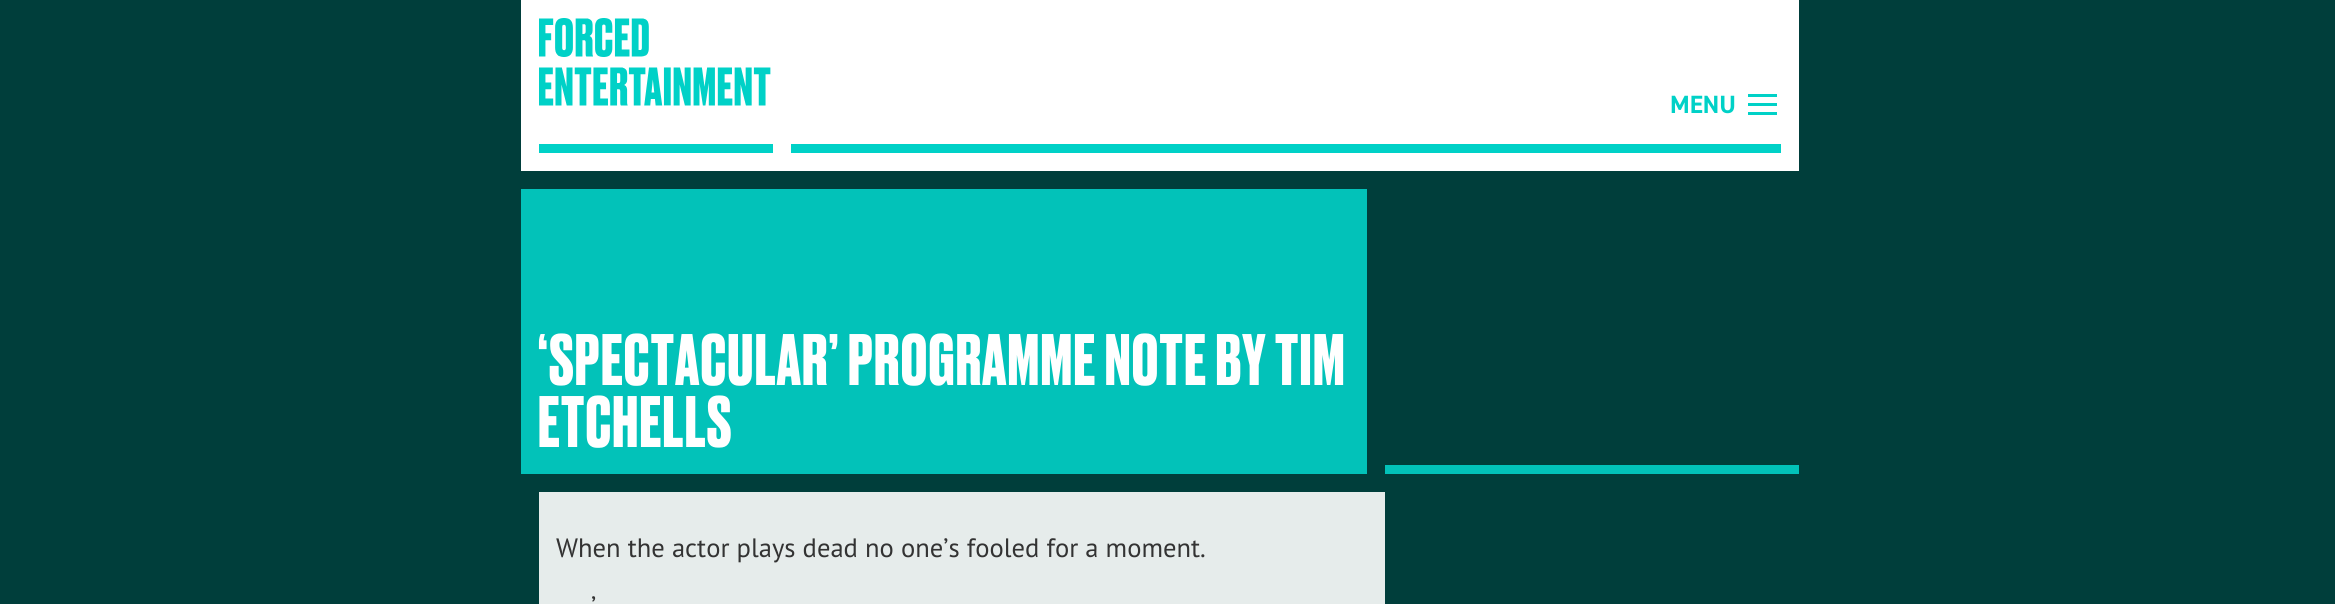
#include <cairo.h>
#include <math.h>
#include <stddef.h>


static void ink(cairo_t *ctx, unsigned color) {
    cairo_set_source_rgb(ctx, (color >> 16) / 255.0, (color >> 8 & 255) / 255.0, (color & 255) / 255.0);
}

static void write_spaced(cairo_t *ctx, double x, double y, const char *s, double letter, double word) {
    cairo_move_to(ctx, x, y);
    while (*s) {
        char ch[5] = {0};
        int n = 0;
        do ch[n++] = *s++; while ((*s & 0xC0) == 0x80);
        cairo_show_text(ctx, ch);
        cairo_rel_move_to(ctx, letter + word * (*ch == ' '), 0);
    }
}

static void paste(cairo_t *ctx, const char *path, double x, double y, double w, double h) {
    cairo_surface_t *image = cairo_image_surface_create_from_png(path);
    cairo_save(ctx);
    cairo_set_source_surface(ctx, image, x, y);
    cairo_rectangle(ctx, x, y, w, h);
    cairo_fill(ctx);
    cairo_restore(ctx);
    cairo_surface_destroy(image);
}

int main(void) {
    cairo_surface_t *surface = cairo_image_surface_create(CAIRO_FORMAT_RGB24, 2335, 604);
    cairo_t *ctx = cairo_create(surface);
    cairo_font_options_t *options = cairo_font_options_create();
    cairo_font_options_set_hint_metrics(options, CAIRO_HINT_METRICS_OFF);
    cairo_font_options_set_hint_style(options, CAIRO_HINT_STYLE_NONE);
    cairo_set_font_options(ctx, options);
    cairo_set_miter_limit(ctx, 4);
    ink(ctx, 0x003E3B);
    cairo_paint(ctx);
    ink(ctx, 0xFFFFFF);
    cairo_rectangle(ctx, 521, 0, 1278, 171);
    cairo_fill(ctx);
    paste(ctx, "media/1.png", 539, 18, 232, 88);
    ink(ctx, 0x00D1C7);
    cairo_rectangle(ctx, 539, 144, 234, 9);
    cairo_fill(ctx);
    cairo_rectangle(ctx, 791, 144, 990, 9);
    cairo_fill(ctx);
    cairo_select_font_face(ctx, "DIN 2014", CAIRO_FONT_SLANT_NORMAL, CAIRO_FONT_WEIGHT_BOLD);
    cairo_set_font_size(ctx, 25);
    cairo_move_to(ctx, 1670, 113);
    cairo_show_text(ctx, "MENU");
    paste(ctx, "media/2.png", 1748, 94, 29, 21);
    ink(ctx, 0x02C2B9);
    cairo_rectangle(ctx, 521, 189, 846, 285);
    cairo_fill(ctx);
    cairo_select_font_face(ctx, "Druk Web", CAIRO_FONT_SLANT_NORMAL, CAIRO_FONT_WEIGHT_BOLD);
    cairo_set_font_size(ctx, 68.5);
    ink(ctx, 0xFFFFFF);
    write_spaced(ctx, 538, 385, "‘SPECTACULAR’ PROGRAMME NOTE BY TIM", 1.35, 0);
    write_spaced(ctx, 538, 447, "ETCHELLS", 1.35, 0);
    ink(ctx, 0x02C2B9);
    cairo_rectangle(ctx, 1385, 465, 414, 9);
    cairo_fill(ctx);
    ink(ctx, 0xE6ECEB);
    cairo_rectangle(ctx, 539, 492, 846, 112);
    cairo_fill(ctx);
    cairo_select_font_face(ctx, "PT Sans", CAIRO_FONT_SLANT_NORMAL, CAIRO_FONT_WEIGHT_NORMAL);
    cairo_set_font_size(ctx, 26.6);
    ink(ctx, 0x333333);
    cairo_move_to(ctx, 556, 557);
    cairo_show_text(ctx, "When the actor plays dead no one’s fooled for a moment.");
    cairo_move_to(ctx, 591, 615);
    cairo_show_text(ctx, "’");
    cairo_surface_write_to_png(surface, "image.png");
    cairo_font_options_destroy(options);
    cairo_destroy(ctx);
    cairo_surface_destroy(surface);
    return 0;
}
